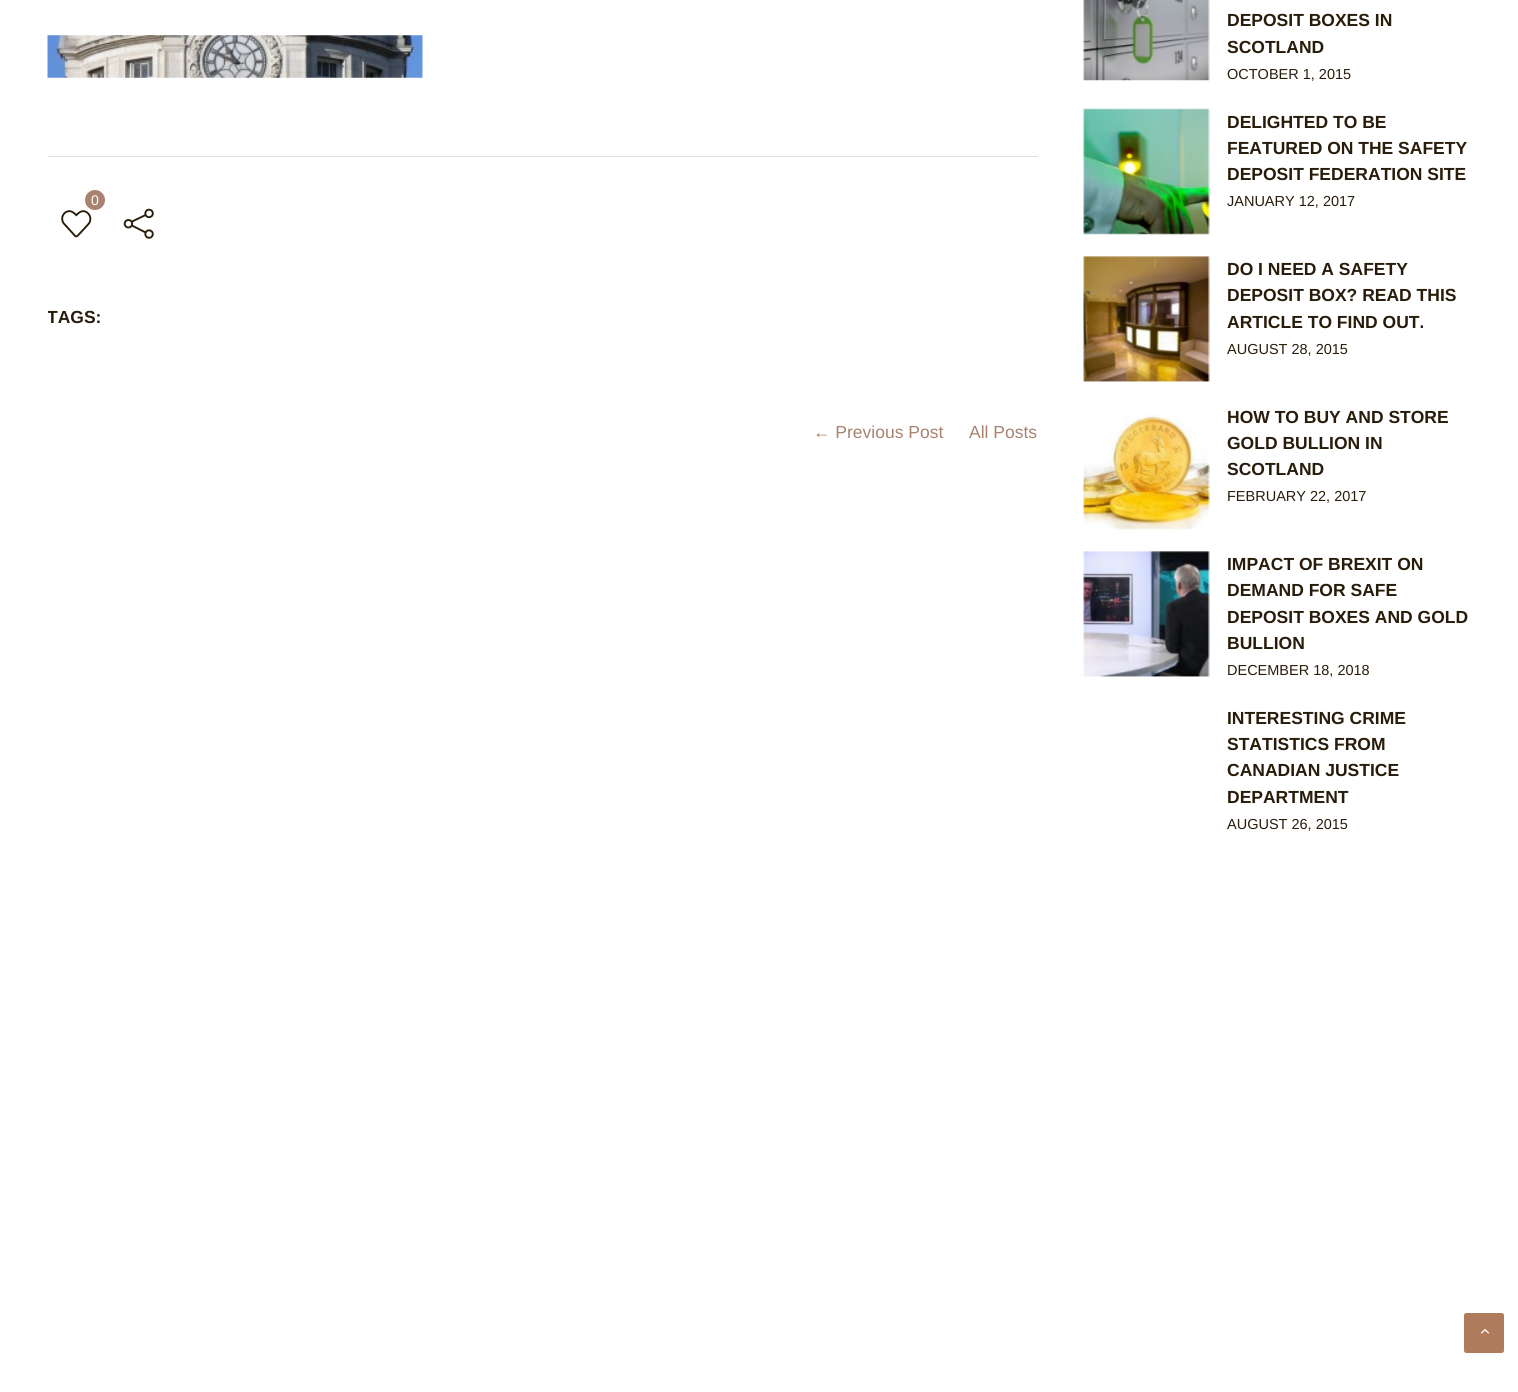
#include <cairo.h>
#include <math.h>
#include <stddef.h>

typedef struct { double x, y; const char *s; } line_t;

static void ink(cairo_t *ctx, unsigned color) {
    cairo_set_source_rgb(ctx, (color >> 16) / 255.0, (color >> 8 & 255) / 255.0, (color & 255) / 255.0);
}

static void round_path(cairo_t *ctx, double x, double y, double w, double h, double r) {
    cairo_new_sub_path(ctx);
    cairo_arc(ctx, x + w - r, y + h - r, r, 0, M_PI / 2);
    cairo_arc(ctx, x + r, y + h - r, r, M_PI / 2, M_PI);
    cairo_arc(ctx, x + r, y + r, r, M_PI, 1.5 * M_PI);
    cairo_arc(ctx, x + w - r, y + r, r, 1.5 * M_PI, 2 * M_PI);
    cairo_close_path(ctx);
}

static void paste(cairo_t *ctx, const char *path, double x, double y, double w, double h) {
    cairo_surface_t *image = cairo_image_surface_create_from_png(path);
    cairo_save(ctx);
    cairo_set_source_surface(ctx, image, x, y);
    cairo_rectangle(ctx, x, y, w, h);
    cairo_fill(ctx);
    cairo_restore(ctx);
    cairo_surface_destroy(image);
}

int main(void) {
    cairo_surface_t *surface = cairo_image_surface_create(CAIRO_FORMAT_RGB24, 1518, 1392);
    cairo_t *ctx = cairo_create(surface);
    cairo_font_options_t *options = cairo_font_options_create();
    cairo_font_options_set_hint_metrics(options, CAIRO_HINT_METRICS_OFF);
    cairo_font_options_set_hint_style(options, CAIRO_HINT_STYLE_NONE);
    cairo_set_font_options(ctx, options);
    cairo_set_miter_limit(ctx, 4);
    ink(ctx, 0xFFFFFF);
    cairo_paint(ctx);
    paste(ctx, "media/1.png", 47, 35, 376, 43);
    ink(ctx, 0xDEDEDE);
    cairo_rectangle(ctx, 48, 156, 990, 1);
    cairo_fill(ctx);
    ink(ctx, 0xA78370);
    cairo_arc(ctx, 95, 200, 10, 0, 2 * M_PI);
    cairo_fill(ctx);
    cairo_select_font_face(ctx, "Liberation Sans", CAIRO_FONT_SLANT_NORMAL, CAIRO_FONT_WEIGHT_NORMAL);
    cairo_set_font_size(ctx, 14);
    ink(ctx, 0xFFFFFF);
    cairo_move_to(ctx, 91, 205);
    cairo_show_text(ctx, "0");
    paste(ctx, "media/2.png", 61, 210, 31, 28);
    paste(ctx, "media/3.png", 123, 208, 31, 31);
    cairo_save(ctx);
    cairo_rectangle(ctx, 48, 0, 990, 490);
    cairo_clip(ctx);
    cairo_select_font_face(ctx, "Liberation Sans", CAIRO_FONT_SLANT_NORMAL, CAIRO_FONT_WEIGHT_BOLD);
    cairo_set_font_size(ctx, 17.5);
    ink(ctx, 0x281C0A);
    cairo_move_to(ctx, 47, 323);
    cairo_show_text(ctx, "TAGS:");
    cairo_restore(ctx);
    cairo_set_font_size(ctx, 17.5);
    ink(ctx, 0xA78370);
    cairo_move_to(ctx, 813, 438);
    cairo_show_text(ctx, "← Previous Post");
    cairo_move_to(ctx, 969, 438);
    cairo_show_text(ctx, "All Posts");
    paste(ctx, "media/4.png", 1083, 0, 127, 81);
    cairo_select_font_face(ctx, "Liberation Sans", CAIRO_FONT_SLANT_NORMAL, CAIRO_FONT_WEIGHT_BOLD);
    ink(ctx, 0x281C0A);
    cairo_move_to(ctx, 1227, 26);
    cairo_show_text(ctx, "DEPOSIT BOXES IN");
    cairo_move_to(ctx, 1227, 53);
    cairo_show_text(ctx, "SCOTLAND");
    cairo_select_font_face(ctx, "Liberation Sans", CAIRO_FONT_SLANT_NORMAL, CAIRO_FONT_WEIGHT_NORMAL);
    cairo_set_font_size(ctx, 14.5);
    cairo_move_to(ctx, 1227, 79);
    cairo_show_text(ctx, "OCTOBER 1, 2015");
    paste(ctx, "media/5.png", 1083, 108, 127, 127);
    cairo_select_font_face(ctx, "Liberation Sans", CAIRO_FONT_SLANT_NORMAL, CAIRO_FONT_WEIGHT_BOLD);
    cairo_set_font_size(ctx, 17.5);
    {
        static const line_t items[] = {
            {1227, 128, "DELIGHTED TO BE"},
            {1227, 154, "FEATURED ON THE SAFETY"},
            {1227, 180, "DEPOSIT FEDERATION SITE"},
        };
        for (size_t i = 0; i < sizeof items / sizeof *items; i++) {
            cairo_move_to(ctx, items[i].x, items[i].y);
            cairo_show_text(ctx, items[i].s);
        }
    }
    cairo_select_font_face(ctx, "Liberation Sans", CAIRO_FONT_SLANT_NORMAL, CAIRO_FONT_WEIGHT_NORMAL);
    cairo_set_font_size(ctx, 14.5);
    cairo_move_to(ctx, 1227, 206);
    cairo_show_text(ctx, "JANUARY 12, 2017");
    paste(ctx, "media/6.png", 1083, 256, 127, 126);
    cairo_select_font_face(ctx, "Liberation Sans", CAIRO_FONT_SLANT_NORMAL, CAIRO_FONT_WEIGHT_BOLD);
    cairo_set_font_size(ctx, 17.5);
    {
        static const line_t items[] = {
            {1227, 275, "DO I NEED A SAFETY"},
            {1227, 301, "DEPOSIT BOX? READ THIS"},
            {1227, 328, "ARTICLE TO FIND OUT."},
        };
        for (size_t i = 0; i < sizeof items / sizeof *items; i++) {
            cairo_move_to(ctx, items[i].x, items[i].y);
            cairo_show_text(ctx, items[i].s);
        }
    }
    cairo_select_font_face(ctx, "Liberation Sans", CAIRO_FONT_SLANT_NORMAL, CAIRO_FONT_WEIGHT_NORMAL);
    cairo_set_font_size(ctx, 14.5);
    cairo_move_to(ctx, 1227, 354);
    cairo_show_text(ctx, "AUGUST 28, 2015");
    paste(ctx, "media/7.png", 1083, 414, 127, 116);
    cairo_select_font_face(ctx, "Liberation Sans", CAIRO_FONT_SLANT_NORMAL, CAIRO_FONT_WEIGHT_BOLD);
    cairo_set_font_size(ctx, 17.5);
    {
        static const line_t items[] = {
            {1227, 423, "HOW TO BUY AND STORE"},
            {1227, 449, "GOLD BULLION IN"},
            {1227, 475, "SCOTLAND"},
        };
        for (size_t i = 0; i < sizeof items / sizeof *items; i++) {
            cairo_move_to(ctx, items[i].x, items[i].y);
            cairo_show_text(ctx, items[i].s);
        }
    }
    cairo_select_font_face(ctx, "Liberation Sans", CAIRO_FONT_SLANT_NORMAL, CAIRO_FONT_WEIGHT_NORMAL);
    cairo_set_font_size(ctx, 14.5);
    cairo_move_to(ctx, 1227, 501);
    cairo_show_text(ctx, "FEBRUARY 22, 2017");
    paste(ctx, "media/8.png", 1083, 551, 127, 126);
    cairo_select_font_face(ctx, "Liberation Sans", CAIRO_FONT_SLANT_NORMAL, CAIRO_FONT_WEIGHT_BOLD);
    cairo_set_font_size(ctx, 17.5);
    {
        static const line_t items[] = {
            {1227, 570, "IMPACT OF BREXIT ON"},
            {1227, 596, "DEMAND FOR SAFE"},
            {1227, 623, "DEPOSIT BOXES AND GOLD"},
            {1227, 649, "BULLION"},
        };
        for (size_t i = 0; i < sizeof items / sizeof *items; i++) {
            cairo_move_to(ctx, items[i].x, items[i].y);
            cairo_show_text(ctx, items[i].s);
        }
    }
    cairo_select_font_face(ctx, "Liberation Sans", CAIRO_FONT_SLANT_NORMAL, CAIRO_FONT_WEIGHT_NORMAL);
    cairo_set_font_size(ctx, 14.5);
    cairo_move_to(ctx, 1227, 675);
    cairo_show_text(ctx, "DECEMBER 18, 2018");
    cairo_select_font_face(ctx, "Liberation Sans", CAIRO_FONT_SLANT_NORMAL, CAIRO_FONT_WEIGHT_BOLD);
    cairo_set_font_size(ctx, 17.5);
    {
        static const line_t items[] = {
            {1227, 724, "INTERESTING CRIME"},
            {1227, 750, "STATISTICS FROM"},
            {1227, 776, "CANADIAN JUSTICE"},
            {1227, 803, "DEPARTMENT"},
        };
        for (size_t i = 0; i < sizeof items / sizeof *items; i++) {
            cairo_move_to(ctx, items[i].x, items[i].y);
            cairo_show_text(ctx, items[i].s);
        }
    }
    cairo_select_font_face(ctx, "Liberation Sans", CAIRO_FONT_SLANT_NORMAL, CAIRO_FONT_WEIGHT_NORMAL);
    cairo_set_font_size(ctx, 14.5);
    cairo_move_to(ctx, 1227, 829);
    cairo_show_text(ctx, "AUGUST 26, 2015");
    ink(ctx, 0xAF7B5D);
    round_path(ctx, 1464.5, 1313.5, 39, 39, 2);
    cairo_fill_preserve(ctx);
    cairo_set_line_width(ctx, 1);
    cairo_stroke(ctx);
    paste(ctx, "media/9.png", 1481, 1329, 8, 5);
    cairo_surface_write_to_png(surface, "image.png");
    cairo_font_options_destroy(options);
    cairo_destroy(ctx);
    cairo_surface_destroy(surface);
    return 0;
}
